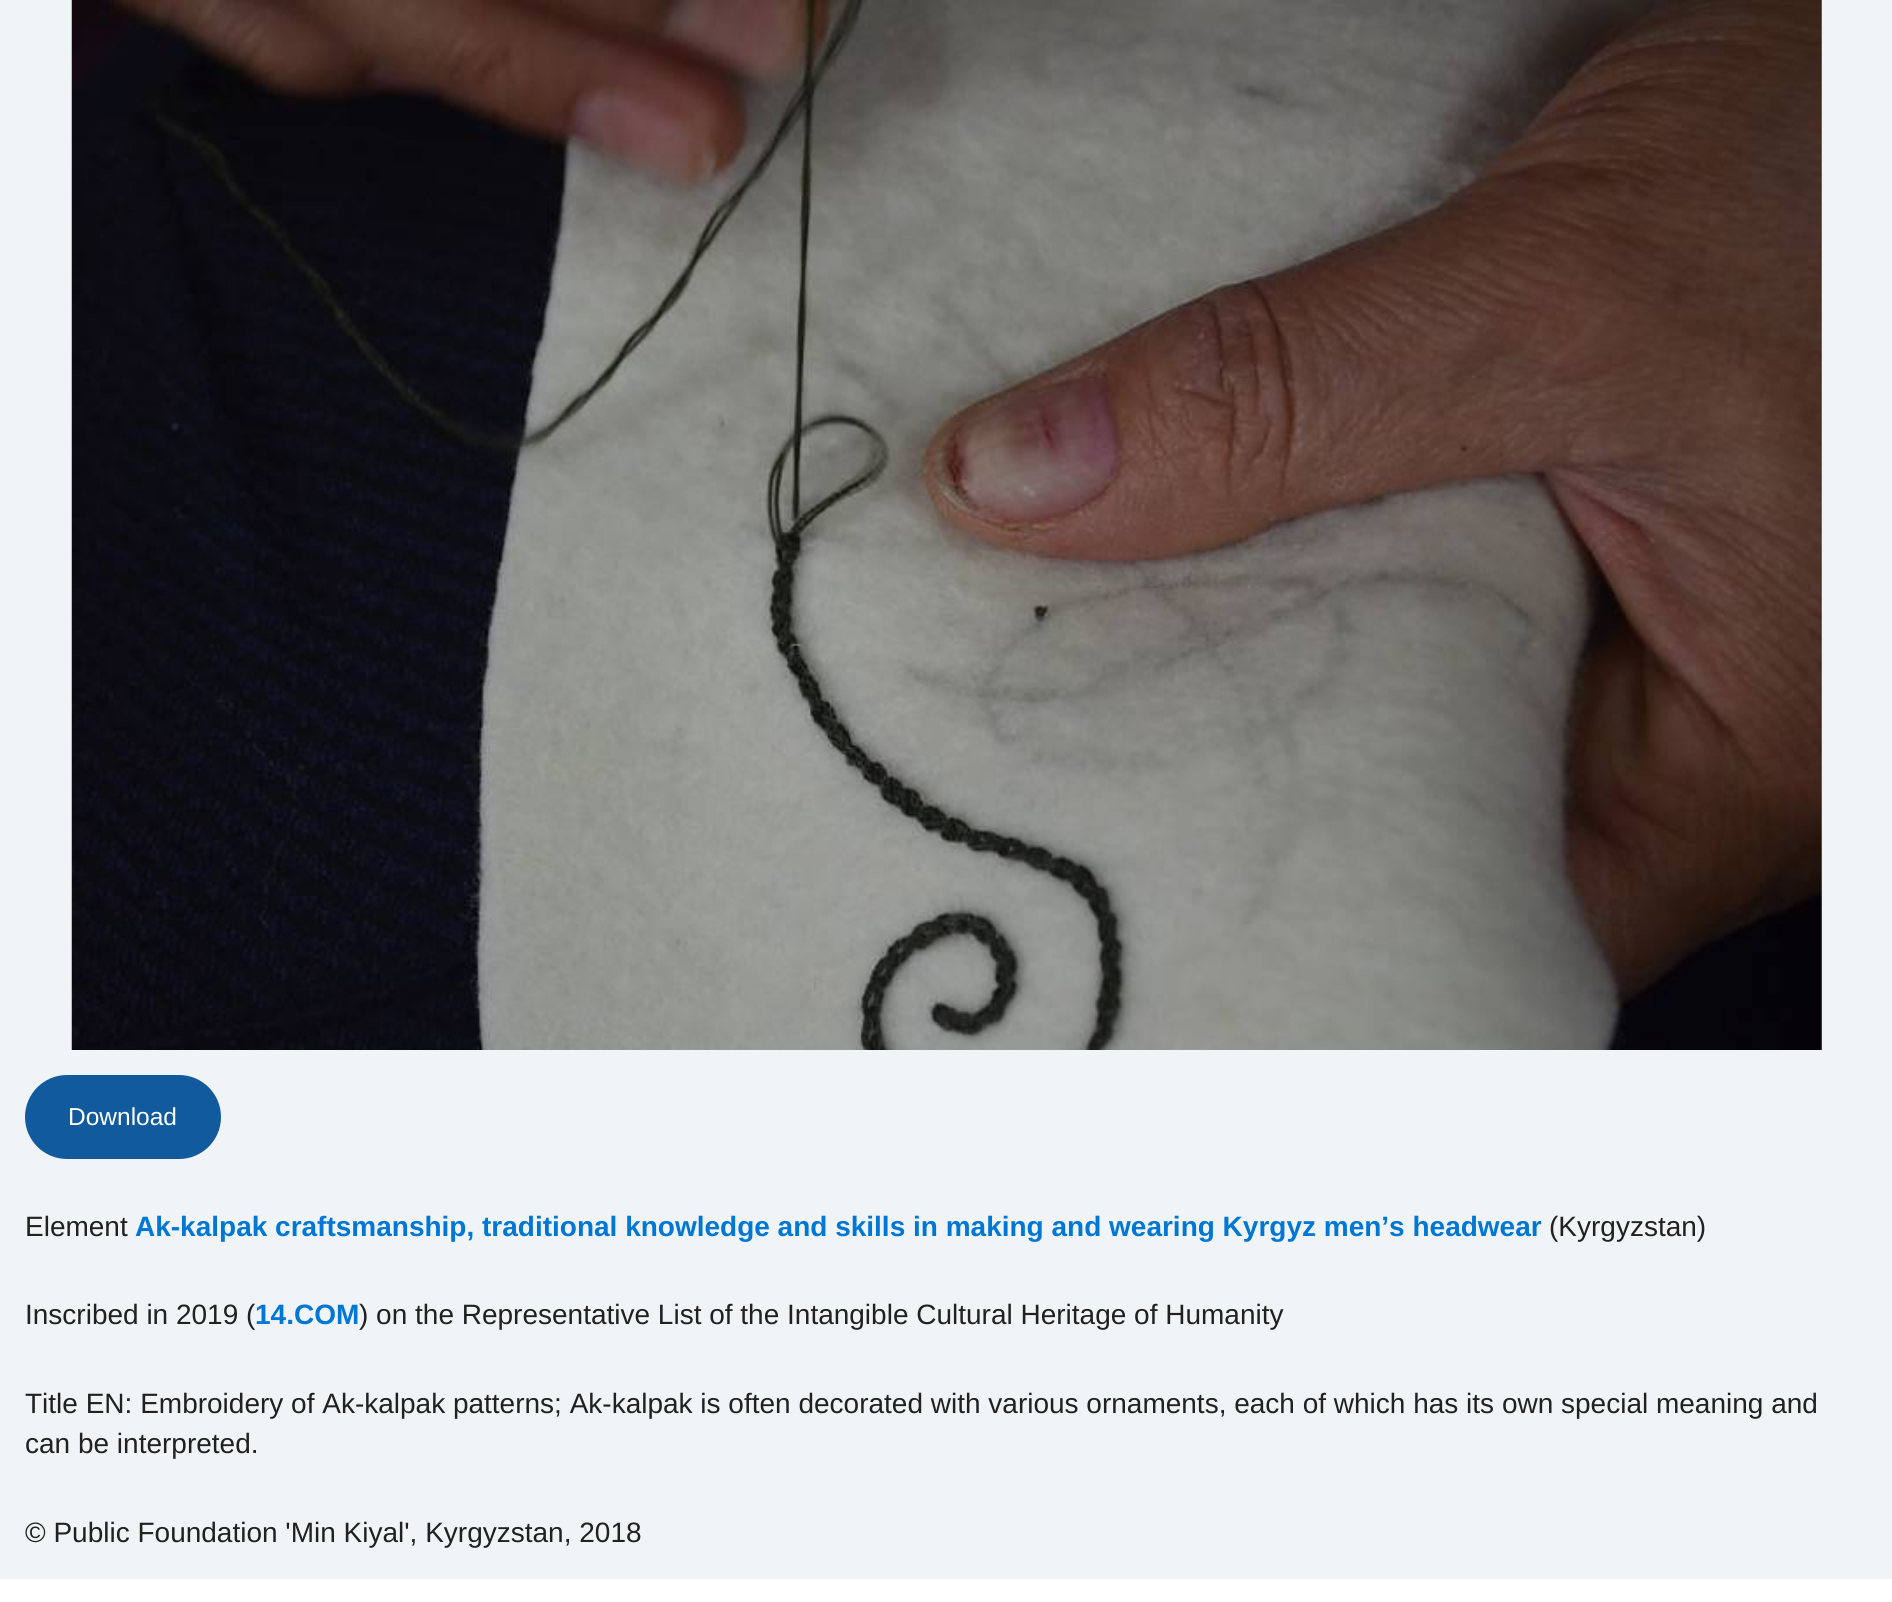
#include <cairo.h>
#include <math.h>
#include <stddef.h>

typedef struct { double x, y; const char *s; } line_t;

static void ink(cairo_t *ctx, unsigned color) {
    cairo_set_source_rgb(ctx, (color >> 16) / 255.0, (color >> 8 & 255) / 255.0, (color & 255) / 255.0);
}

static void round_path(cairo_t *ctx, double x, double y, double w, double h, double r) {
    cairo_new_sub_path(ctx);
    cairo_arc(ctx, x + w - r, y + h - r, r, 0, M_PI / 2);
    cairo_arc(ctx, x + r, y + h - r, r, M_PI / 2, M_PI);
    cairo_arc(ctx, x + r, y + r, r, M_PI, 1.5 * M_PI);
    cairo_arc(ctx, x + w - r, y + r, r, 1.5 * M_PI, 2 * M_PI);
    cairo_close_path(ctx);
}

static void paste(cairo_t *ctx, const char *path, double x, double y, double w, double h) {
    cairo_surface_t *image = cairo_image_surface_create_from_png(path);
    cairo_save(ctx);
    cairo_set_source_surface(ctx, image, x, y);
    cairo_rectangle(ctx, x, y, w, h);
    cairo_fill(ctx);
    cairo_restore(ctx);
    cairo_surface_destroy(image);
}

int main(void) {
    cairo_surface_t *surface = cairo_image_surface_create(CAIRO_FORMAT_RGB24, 1892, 1602);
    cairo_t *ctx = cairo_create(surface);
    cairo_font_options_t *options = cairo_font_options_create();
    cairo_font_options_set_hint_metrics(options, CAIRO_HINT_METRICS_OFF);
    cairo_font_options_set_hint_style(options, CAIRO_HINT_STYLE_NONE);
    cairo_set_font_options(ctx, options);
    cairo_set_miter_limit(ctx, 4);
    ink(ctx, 0xFFFFFF);
    cairo_paint(ctx);
    ink(ctx, 0xF1F4F6);
    cairo_rectangle(ctx, 0, 0, 1892, 1579);
    cairo_fill(ctx);
    paste(ctx, "media/1.png", 71, 0, 1751, 1050);
    ink(ctx, 0x115A9E);
    round_path(ctx, 25, 1075, 196, 84, 42);
    cairo_fill(ctx);
    cairo_select_font_face(ctx, "Liberation Sans", CAIRO_FONT_SLANT_NORMAL, CAIRO_FONT_WEIGHT_NORMAL);
    cairo_set_font_size(ctx, 24.5);
    ink(ctx, 0xFFFFFF);
    cairo_move_to(ctx, 68, 1125);
    cairo_show_text(ctx, "Download");
    cairo_set_font_size(ctx, 28);
    ink(ctx, 0x212121);
    cairo_move_to(ctx, 25, 1236);
    cairo_show_text(ctx, "Element");
    cairo_select_font_face(ctx, "Liberation Sans", CAIRO_FONT_SLANT_NORMAL, CAIRO_FONT_WEIGHT_BOLD);
    ink(ctx, 0x0077D4);
    cairo_move_to(ctx, 135, 1236);
    cairo_show_text(ctx, "Ak-kalpak craftsmanship, traditional knowledge and skills in making and wearing Kyrgyz men’s headwear");
    cairo_select_font_face(ctx, "Liberation Sans", CAIRO_FONT_SLANT_NORMAL, CAIRO_FONT_WEIGHT_NORMAL);
    ink(ctx, 0x212121);
    cairo_move_to(ctx, 1549, 1236);
    cairo_show_text(ctx, "(Kyrgyzstan)");
    cairo_move_to(ctx, 25, 1324);
    cairo_show_text(ctx, "Inscribed in 2019 (");
    cairo_select_font_face(ctx, "Liberation Sans", CAIRO_FONT_SLANT_NORMAL, CAIRO_FONT_WEIGHT_BOLD);
    ink(ctx, 0x0077D4);
    cairo_move_to(ctx, 255, 1324);
    cairo_show_text(ctx, "14.COM");
    cairo_select_font_face(ctx, "Liberation Sans", CAIRO_FONT_SLANT_NORMAL, CAIRO_FONT_WEIGHT_NORMAL);
    ink(ctx, 0x212121);
    {
        static const line_t items[] = {
            {359, 1324, ") on the Representative List of the Intangible Cultural Heritage of Humanity"},
            {25, 1413, "Title EN: Embroidery of Ak-kalpak patterns; Ak-kalpak is often decorated with various ornaments, each of which has its own special meaning and"},
            {25, 1453, "can be interpreted."},
            {25, 1542, "© Public Foundation 'Min Kiyal', Kyrgyzstan, 2018"},
        };
        for (size_t i = 0; i < sizeof items / sizeof *items; i++) {
            cairo_move_to(ctx, items[i].x, items[i].y);
            cairo_show_text(ctx, items[i].s);
        }
    }
    cairo_surface_write_to_png(surface, "image.png");
    cairo_font_options_destroy(options);
    cairo_destroy(ctx);
    cairo_surface_destroy(surface);
    return 0;
}
